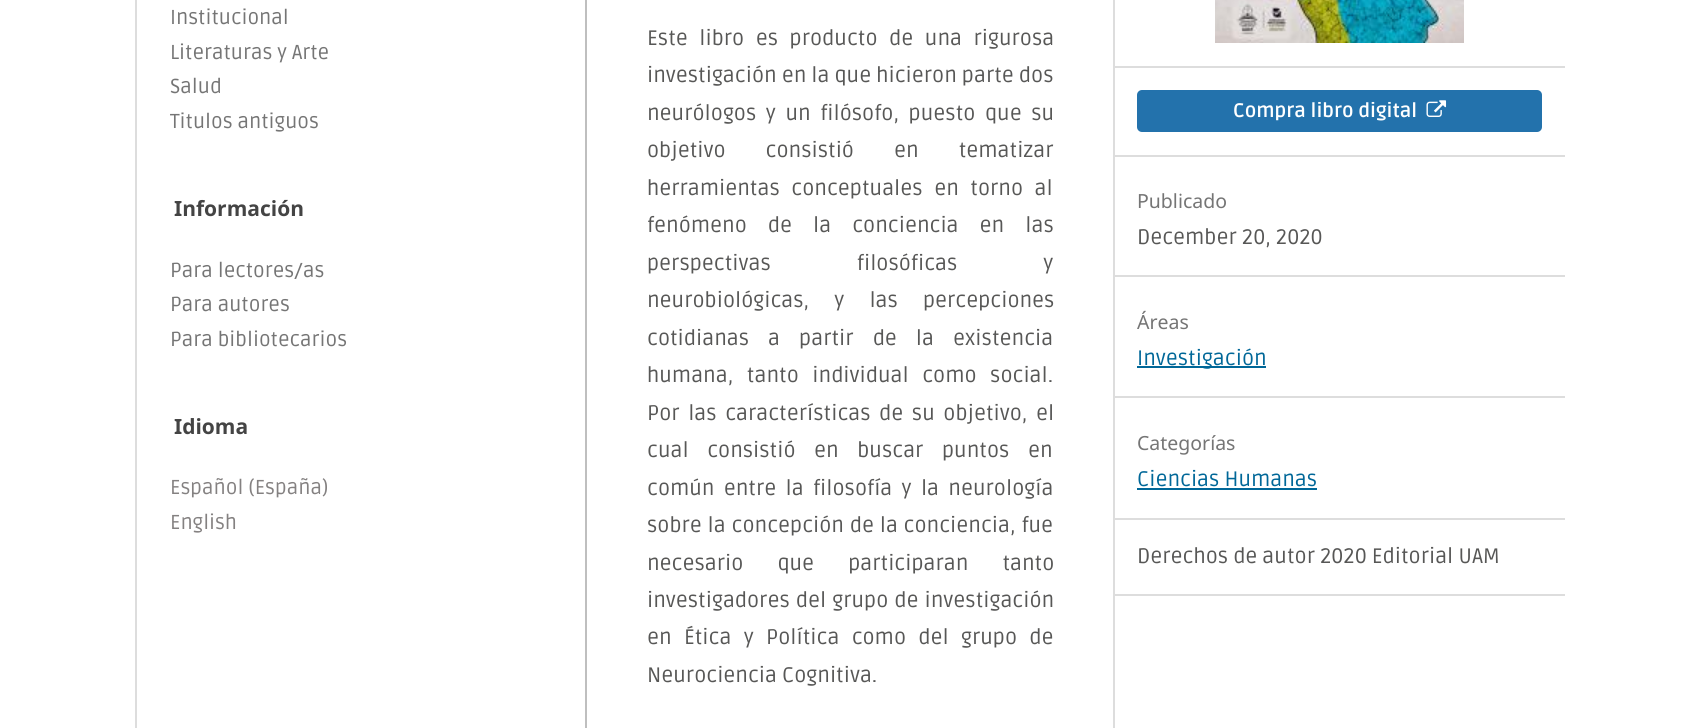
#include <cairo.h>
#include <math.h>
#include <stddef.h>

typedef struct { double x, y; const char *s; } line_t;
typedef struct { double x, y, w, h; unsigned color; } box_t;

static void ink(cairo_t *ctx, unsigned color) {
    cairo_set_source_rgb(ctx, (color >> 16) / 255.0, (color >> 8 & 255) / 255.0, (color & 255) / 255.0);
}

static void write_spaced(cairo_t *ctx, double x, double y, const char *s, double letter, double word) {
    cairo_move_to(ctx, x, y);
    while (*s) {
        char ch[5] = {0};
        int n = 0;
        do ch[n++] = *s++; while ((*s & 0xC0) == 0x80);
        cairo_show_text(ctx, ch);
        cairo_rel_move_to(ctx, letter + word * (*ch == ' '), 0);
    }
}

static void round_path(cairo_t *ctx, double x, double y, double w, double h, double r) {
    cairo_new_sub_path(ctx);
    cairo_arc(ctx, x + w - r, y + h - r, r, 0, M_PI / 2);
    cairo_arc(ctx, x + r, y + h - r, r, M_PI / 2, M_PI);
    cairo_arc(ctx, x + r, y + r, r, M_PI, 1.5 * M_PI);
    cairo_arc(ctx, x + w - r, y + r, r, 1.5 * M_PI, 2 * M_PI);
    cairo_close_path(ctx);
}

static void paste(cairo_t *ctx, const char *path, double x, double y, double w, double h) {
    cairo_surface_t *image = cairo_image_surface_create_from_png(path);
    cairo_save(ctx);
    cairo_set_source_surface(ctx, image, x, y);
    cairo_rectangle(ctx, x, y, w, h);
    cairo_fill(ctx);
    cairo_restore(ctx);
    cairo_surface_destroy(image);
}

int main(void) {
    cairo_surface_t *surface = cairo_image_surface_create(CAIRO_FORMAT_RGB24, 1698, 728);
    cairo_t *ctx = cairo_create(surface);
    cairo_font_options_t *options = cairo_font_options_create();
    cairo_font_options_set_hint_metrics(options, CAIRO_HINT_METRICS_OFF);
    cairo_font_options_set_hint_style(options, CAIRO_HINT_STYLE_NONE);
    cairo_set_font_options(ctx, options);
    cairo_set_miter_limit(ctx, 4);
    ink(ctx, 0xFFFFFF);
    cairo_paint(ctx);
    cairo_select_font_face(ctx, "Ruda", CAIRO_FONT_SLANT_NORMAL, CAIRO_FONT_WEIGHT_NORMAL);
    cairo_set_font_size(ctx, 20.25);
    ink(ctx, 0x757575);
    {
        static const line_t items[] = {
            {170, 24, "Institucional"},
            {170, 59, "Literaturas y Arte"},
            {170, 93, "Salud"},
            {170, 128, "Titulos antiguos"},
        };
        for (size_t i = 0; i < sizeof items / sizeof *items; i++) {
            cairo_move_to(ctx, items[i].x, items[i].y);
            cairo_show_text(ctx, items[i].s);
        }
    }
    cairo_select_font_face(ctx, "Noto Sans", CAIRO_FONT_SLANT_NORMAL, CAIRO_FONT_WEIGHT_BOLD);
    cairo_set_font_size(ctx, 21);
    ink(ctx, 0x444444);
    cairo_move_to(ctx, 174, 216);
    cairo_show_text(ctx, "Información");
    cairo_select_font_face(ctx, "Ruda", CAIRO_FONT_SLANT_NORMAL, CAIRO_FONT_WEIGHT_NORMAL);
    cairo_set_font_size(ctx, 20.25);
    ink(ctx, 0x757575);
    {
        static const line_t items[] = {
            {170, 277, "Para lectores/as"},
            {170, 311, "Para autores"},
            {170, 346, "Para bibliotecarios"},
        };
        for (size_t i = 0; i < sizeof items / sizeof *items; i++) {
            cairo_move_to(ctx, items[i].x, items[i].y);
            cairo_show_text(ctx, items[i].s);
        }
    }
    cairo_select_font_face(ctx, "Noto Sans", CAIRO_FONT_SLANT_NORMAL, CAIRO_FONT_WEIGHT_BOLD);
    cairo_set_font_size(ctx, 21);
    ink(ctx, 0x444444);
    cairo_move_to(ctx, 174, 434);
    cairo_show_text(ctx, "Idioma");
    cairo_select_font_face(ctx, "Ruda", CAIRO_FONT_SLANT_NORMAL, CAIRO_FONT_WEIGHT_NORMAL);
    cairo_set_font_size(ctx, 20.25);
    ink(ctx, 0x848181);
    cairo_move_to(ctx, 170, 494);
    cairo_show_text(ctx, "Español (España)");
    cairo_move_to(ctx, 170, 529);
    cairo_show_text(ctx, "English");
    {
        static const box_t items[] = {
            {585, 0, 2, 728, 0xBFBFBF},
            {135, 0, 2, 728, 0xDDDDDD},
            {1113, 0, 2, 728, 0xDDDDDD},
        };
        for (size_t i = 0; i < sizeof items / sizeof *items; i++) {
            ink(ctx, items[i].color);
            cairo_rectangle(ctx, items[i].x, items[i].y, items[i].w, items[i].h);
            cairo_fill(ctx);
        }
    }
    cairo_set_font_size(ctx, 21);
    ink(ctx, 0x575756);
    write_spaced(ctx, 647, 45, "Este libro es producto de una rigurosa", 0, 6.5);
    cairo_move_to(ctx, 647, 82);
    cairo_show_text(ctx, "investigación en la que hicieron parte dos");
    write_spaced(ctx, 647, 120, "neurólogos y un filósofo, puesto que su", 0, 4.5);
    write_spaced(ctx, 647, 157, "objetivo consistió en tematizar", 0, 35);
    write_spaced(ctx, 647, 195, "herramientas conceptuales en torno al", 0, 6.5);
    write_spaced(ctx, 647, 232, "fenómeno de la conciencia en las", 0, 16);
    write_spaced(ctx, 647, 270, "perspectivas filosóficas y", 0, 81);
    write_spaced(ctx, 647, 307, "neurobiológicas, y las percepciones", 0, 20);
    write_spaced(ctx, 647, 345, "cotidianas a partir de la existencia", 0, 14);
    write_spaced(ctx, 647, 382, "humana, tanto individual como social.", 0, 8.5);
    write_spaced(ctx, 647, 420, "Por las características de su objetivo, el", 0, 3.5);
    write_spaced(ctx, 647, 457, "cual consistió en buscar puntos en", 0, 13.5);
    write_spaced(ctx, 647, 495, "común entre la filosofía y la neurología", 0, 4.25);
    write_spaced(ctx, 647, 532, "sobre la concepción de la conciencia, fue", 0, 0.75);
    write_spaced(ctx, 647, 570, "necesario que participaran tanto", 0, 29);
    write_spaced(ctx, 647, 607, "investigadores del grupo de investigación", 0, 1);
    write_spaced(ctx, 647, 644, "en Ética y Política como del grupo de", 0, 7.25);
    cairo_move_to(ctx, 647, 682);
    cairo_show_text(ctx, "Neurociencia Cognitiva.");
    ink(ctx, 0xDDDDDD);
    cairo_rectangle(ctx, 1115, 66, 450, 2);
    cairo_fill(ctx);
    paste(ctx, "media/1.png", 1215, 0, 249, 43);
    cairo_rectangle(ctx, 1115, 155, 450, 2);
    cairo_fill(ctx);
    ink(ctx, 0x2372AC);
    round_path(ctx, 1137, 90, 405, 42, 5);
    cairo_fill(ctx);
    cairo_select_font_face(ctx, "Ruda", CAIRO_FONT_SLANT_NORMAL, CAIRO_FONT_WEIGHT_BOLD);
    cairo_set_font_size(ctx, 19.5);
    ink(ctx, 0xFFFFFF);
    cairo_move_to(ctx, 1233, 117);
    cairo_show_text(ctx, "Compra libro digital");
    paste(ctx, "media/2.png", 1426, 100, 21, 17);
    ink(ctx, 0xDDDDDD);
    cairo_rectangle(ctx, 1115, 275, 450, 2);
    cairo_fill(ctx);
    cairo_select_font_face(ctx, "Noto Sans", CAIRO_FONT_SLANT_NORMAL, CAIRO_FONT_WEIGHT_NORMAL);
    ink(ctx, 0x757575);
    cairo_move_to(ctx, 1137, 208);
    cairo_show_text(ctx, "Publicado");
    cairo_select_font_face(ctx, "Ruda", CAIRO_FONT_SLANT_NORMAL, CAIRO_FONT_WEIGHT_NORMAL);
    cairo_set_font_size(ctx, 21);
    ink(ctx, 0x575756);
    cairo_move_to(ctx, 1137, 244);
    cairo_show_text(ctx, "December 20, 2020");
    ink(ctx, 0xDDDDDD);
    cairo_rectangle(ctx, 1115, 396, 450, 2);
    cairo_fill(ctx);
    cairo_select_font_face(ctx, "Noto Sans", CAIRO_FONT_SLANT_NORMAL, CAIRO_FONT_WEIGHT_NORMAL);
    cairo_set_font_size(ctx, 19.5);
    ink(ctx, 0x757575);
    cairo_move_to(ctx, 1137, 329);
    cairo_show_text(ctx, "Áreas");
    ink(ctx, 0x006798);
    cairo_rectangle(ctx, 1137, 366, 129, 2);
    cairo_fill(ctx);
    cairo_select_font_face(ctx, "Ruda", CAIRO_FONT_SLANT_NORMAL, CAIRO_FONT_WEIGHT_NORMAL);
    cairo_set_font_size(ctx, 21);
    cairo_move_to(ctx, 1137, 365);
    cairo_show_text(ctx, "Investigación");
    ink(ctx, 0xDDDDDD);
    cairo_rectangle(ctx, 1115, 518, 450, 2);
    cairo_fill(ctx);
    cairo_select_font_face(ctx, "Noto Sans", CAIRO_FONT_SLANT_NORMAL, CAIRO_FONT_WEIGHT_NORMAL);
    cairo_set_font_size(ctx, 19.5);
    ink(ctx, 0x757575);
    cairo_move_to(ctx, 1137, 450);
    cairo_show_text(ctx, "Categorías");
    cairo_select_font_face(ctx, "Ruda", CAIRO_FONT_SLANT_NORMAL, CAIRO_FONT_WEIGHT_NORMAL);
    cairo_set_font_size(ctx, 21);
    ink(ctx, 0x006798);
    cairo_move_to(ctx, 1137, 486);
    cairo_show_text(ctx, "Ciencias Humanas");
    cairo_rectangle(ctx, 1137, 488, 180, 2);
    cairo_fill(ctx);
    ink(ctx, 0xDDDDDD);
    cairo_rectangle(ctx, 1115, 594, 450, 2);
    cairo_fill(ctx);
    ink(ctx, 0x575756);
    cairo_move_to(ctx, 1137, 563);
    cairo_show_text(ctx, "Derechos de autor 2020 Editorial UAM");
    cairo_surface_write_to_png(surface, "image.png");
    cairo_font_options_destroy(options);
    cairo_destroy(ctx);
    cairo_surface_destroy(surface);
    return 0;
}
